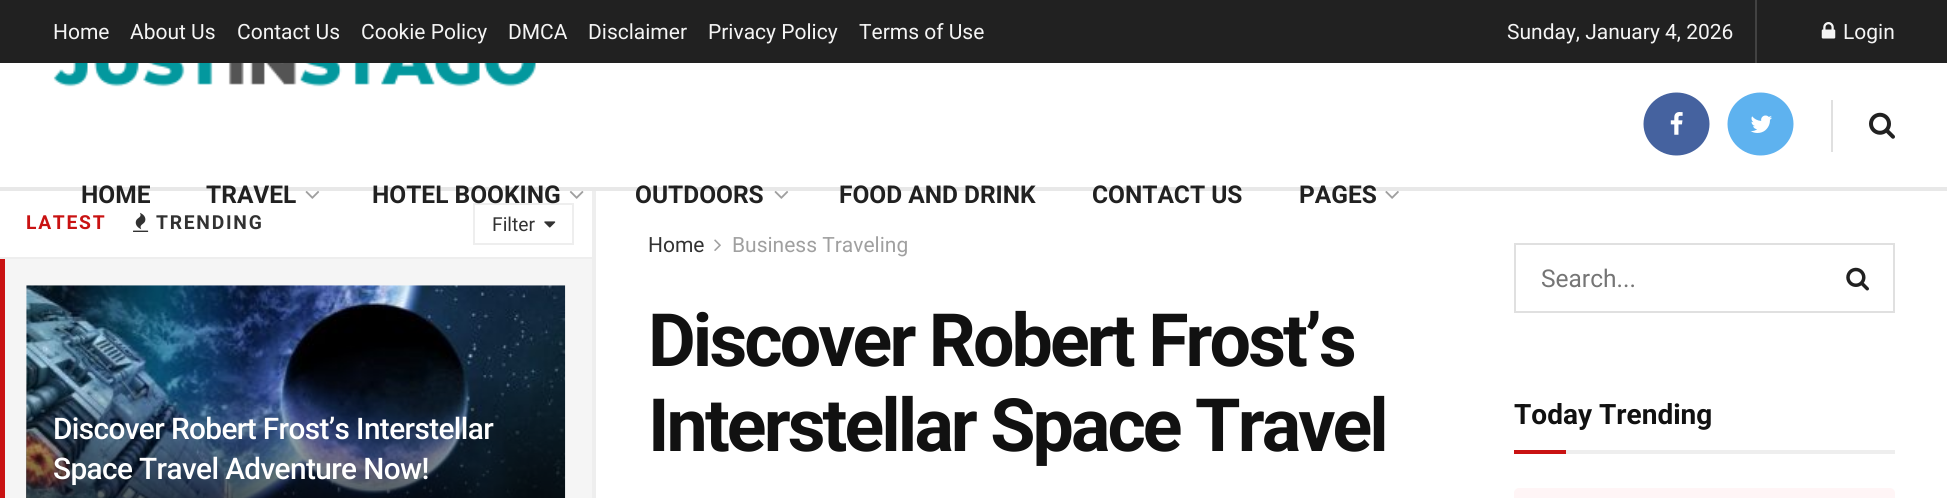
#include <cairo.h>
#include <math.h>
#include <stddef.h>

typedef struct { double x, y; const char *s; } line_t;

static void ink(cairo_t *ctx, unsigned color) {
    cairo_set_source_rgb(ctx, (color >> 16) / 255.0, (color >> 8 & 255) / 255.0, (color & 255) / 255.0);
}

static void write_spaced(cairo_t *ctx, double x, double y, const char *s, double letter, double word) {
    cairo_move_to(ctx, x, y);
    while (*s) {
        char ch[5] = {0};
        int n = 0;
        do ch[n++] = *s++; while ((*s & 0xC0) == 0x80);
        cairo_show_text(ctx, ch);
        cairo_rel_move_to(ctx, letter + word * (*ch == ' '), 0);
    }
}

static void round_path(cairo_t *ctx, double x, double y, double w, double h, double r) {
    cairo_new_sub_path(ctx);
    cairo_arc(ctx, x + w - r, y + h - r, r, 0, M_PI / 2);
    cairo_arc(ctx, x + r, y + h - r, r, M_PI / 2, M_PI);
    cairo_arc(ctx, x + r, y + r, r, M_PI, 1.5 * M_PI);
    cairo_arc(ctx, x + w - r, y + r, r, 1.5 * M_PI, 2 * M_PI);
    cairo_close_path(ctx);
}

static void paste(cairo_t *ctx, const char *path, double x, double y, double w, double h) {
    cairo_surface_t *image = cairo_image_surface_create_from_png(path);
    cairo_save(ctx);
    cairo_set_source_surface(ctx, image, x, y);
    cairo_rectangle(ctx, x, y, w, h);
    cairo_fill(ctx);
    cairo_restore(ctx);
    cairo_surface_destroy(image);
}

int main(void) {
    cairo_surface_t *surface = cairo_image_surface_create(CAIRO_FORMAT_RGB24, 1947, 498);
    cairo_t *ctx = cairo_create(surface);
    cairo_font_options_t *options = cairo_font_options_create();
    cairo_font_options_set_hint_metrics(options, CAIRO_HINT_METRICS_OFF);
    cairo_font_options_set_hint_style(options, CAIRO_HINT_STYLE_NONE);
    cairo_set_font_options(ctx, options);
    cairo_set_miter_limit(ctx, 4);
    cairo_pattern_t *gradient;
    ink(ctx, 0xFFFFFF);
    cairo_paint(ctx);
    ink(ctx, 0x212121);
    cairo_rectangle(ctx, 0, 0, 1947, 63);
    cairo_fill(ctx);
    cairo_select_font_face(ctx, "Roboto", CAIRO_FONT_SLANT_NORMAL, CAIRO_FONT_WEIGHT_NORMAL);
    cairo_set_font_size(ctx, 21);
    ink(ctx, 0xF5F5F5);
    {
        static const line_t items[] = {
            {53, 39, "Home"},
            {130, 39, "About Us"},
            {237, 39, "Contact Us"},
            {361, 39, "Cookie Policy"},
            {508, 39, "DMCA"},
            {588, 39, "Disclaimer"},
            {708, 39, "Privacy Policy"},
            {859, 39, "Terms of Use"},
        };
        for (size_t i = 0; i < sizeof items / sizeof *items; i++) {
            cairo_move_to(ctx, items[i].x, items[i].y);
            cairo_show_text(ctx, items[i].s);
        }
    }
    ink(ctx, 0x424242);
    cairo_rectangle(ctx, 1755, 0, 2, 63);
    cairo_fill(ctx);
    ink(ctx, 0xF5F5F5);
    cairo_move_to(ctx, 1507, 39);
    cairo_show_text(ctx, "Sunday, January 4, 2026");
    paste(ctx, "media/1.png", 1821, 22, 15, 17);
    cairo_move_to(ctx, 1843, 39);
    cairo_show_text(ctx, "Login");
    ink(ctx, 0xE8E8E8);
    cairo_rectangle(ctx, 0, 187, 1947, 4);
    cairo_fill(ctx);
    ink(ctx, 0x45629F);
    cairo_new_path(ctx);
    cairo_move_to(ctx, 1676.5, 92.5);
    cairo_curve_to(ctx, 1694.5, 92.5, 1709.5, 106.5, 1709.5, 124);
    cairo_curve_to(ctx, 1709.5, 141.5, 1694.5, 155.5, 1676.5, 155.5);
    cairo_curve_to(ctx, 1658.5, 155.5, 1643.5, 141.5, 1643.5, 124);
    cairo_curve_to(ctx, 1643.5, 106.5, 1658.5, 92.5, 1676.5, 92.5);
    cairo_close_path(ctx);
    cairo_fill(ctx);
    paste(ctx, "media/2.png", 1670, 112, 13, 23);
    ink(ctx, 0x5EB2EF);
    cairo_new_path(ctx);
    cairo_move_to(ctx, 1760.5, 92.5);
    cairo_curve_to(ctx, 1778.5, 92.5, 1793.5, 106.5, 1793.5, 124);
    cairo_curve_to(ctx, 1793.5, 141.5, 1778.5, 155.5, 1760.5, 155.5);
    cairo_curve_to(ctx, 1742.5, 155.5, 1727.5, 141.5, 1727.5, 124);
    cairo_curve_to(ctx, 1727.5, 106.5, 1742.5, 92.5, 1760.5, 92.5);
    cairo_close_path(ctx);
    cairo_fill(ctx);
    paste(ctx, "media/3.png", 1750, 115, 22, 18);
    ink(ctx, 0xE0E0E0);
    cairo_rectangle(ctx, 1831, 100, 2, 52);
    cairo_fill(ctx);
    paste(ctx, "media/4.png", 1869, 112, 26, 27);
    paste(ctx, "media/5.png", 53, 63, 483, 24);
    cairo_select_font_face(ctx, "Roboto", CAIRO_FONT_SLANT_NORMAL, CAIRO_FONT_WEIGHT_BOLD);
    cairo_set_font_size(ctx, 24.5);
    ink(ctx, 0x212121);
    cairo_move_to(ctx, 81, 203);
    cairo_show_text(ctx, "HOME");
    cairo_move_to(ctx, 206, 203);
    cairo_show_text(ctx, "TRAVEL");
    paste(ctx, "media/6.png", 305, 191, 15, 8);
    cairo_rectangle(ctx, 474, 204, 99, 40);
    ink(ctx, 0xEEEEEE);
    cairo_stroke(ctx);
    ink(ctx, 0x212121);
    cairo_move_to(ctx, 372, 203);
    cairo_show_text(ctx, "HOTEL BOOKING");
    paste(ctx, "media/7.png", 569, 191, 15, 8);
    cairo_move_to(ctx, 635, 203);
    cairo_show_text(ctx, "OUTDOORS");
    paste(ctx, "media/6.png", 774, 191, 15, 8);
    {
        static const line_t items[] = {
            {839, 203, "FOOD AND DRINK"},
            {1092, 203, "CONTACT US"},
            {1299, 203, "PAGES"},
        };
        for (size_t i = 0; i < sizeof items / sizeof *items; i++) {
            cairo_move_to(ctx, items[i].x, items[i].y);
            cairo_show_text(ctx, items[i].s);
        }
    }
    paste(ctx, "media/8.png", 1385, 191, 14, 8);
    cairo_select_font_face(ctx, "Roboto", CAIRO_FONT_SLANT_NORMAL, CAIRO_FONT_WEIGHT_NORMAL);
    cairo_set_font_size(ctx, 21);
    ink(ctx, 0x323232);
    cairo_move_to(ctx, 648, 252);
    cairo_show_text(ctx, "Home");
    paste(ctx, "media/9.png", 714, 239, 7, 12);
    ink(ctx, 0xA0A0A0);
    cairo_move_to(ctx, 732, 252);
    cairo_show_text(ctx, "Business Traveling");
    cairo_select_font_face(ctx, "Roboto", CAIRO_FONT_SLANT_NORMAL, CAIRO_FONT_WEIGHT_BOLD);
    cairo_set_font_size(ctx, 73.5);
    ink(ctx, 0x111111);
    write_spaced(ctx, 648, 366, "Discover Robert Frost’s", -2.9, 0);
    write_spaced(ctx, 648, 451, "Interstellar Space Travel", -2.9, 0);
    cairo_rectangle(ctx, 1515, 244, 379, 68);
    ink(ctx, 0xE0E0E0);
    cairo_stroke(ctx);
    cairo_select_font_face(ctx, "Roboto", CAIRO_FONT_SLANT_NORMAL, CAIRO_FONT_WEIGHT_NORMAL);
    cairo_set_font_size(ctx, 24.5);
    ink(ctx, 0x757575);
    cairo_move_to(ctx, 1541, 287);
    cairo_show_text(ctx, "Search...");
    paste(ctx, "media/10.png", 1846, 267, 23, 24);
    ink(ctx, 0xEEEEEE);
    cairo_rectangle(ctx, 1566, 450, 329, 4);
    cairo_fill(ctx);
    cairo_select_font_face(ctx, "Roboto", CAIRO_FONT_SLANT_NORMAL, CAIRO_FONT_WEIGHT_BOLD);
    cairo_set_font_size(ctx, 28);
    ink(ctx, 0x111111);
    cairo_move_to(ctx, 1514, 424);
    cairo_show_text(ctx, "Today Trending");
    ink(ctx, 0xC91212);
    cairo_rectangle(ctx, 1514, 450, 52, 4);
    cairo_fill(ctx);
    ink(ctx, 0xFFF5F6);
    round_path(ctx, 1514, 488, 381, 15, 5);
    cairo_fill(ctx);
    ink(ctx, 0xEEEEEE);
    cairo_rectangle(ctx, 592, 191, 4, 307);
    cairo_fill(ctx);
    cairo_rectangle(ctx, 0, 257, 592, 2);
    cairo_fill(ctx);
    cairo_set_font_size(ctx, 19.25);
    ink(ctx, 0xC91212);
    write_spaced(ctx, 26, 229, "LATEST", 1.75, 0);
    paste(ctx, "media/11.png", 133, 212, 16, 20);
    ink(ctx, 0x323232);
    write_spaced(ctx, 156, 229, "TRENDING", 1.75, 0);
    cairo_select_font_face(ctx, "Roboto", CAIRO_FONT_SLANT_NORMAL, CAIRO_FONT_WEIGHT_NORMAL);
    cairo_move_to(ctx, 492, 231);
    cairo_show_text(ctx, "Filter");
    paste(ctx, "media/12.png", 544, 221, 12, 7);
    ink(ctx, 0xF5F5F5);
    cairo_rectangle(ctx, 5, 259, 587, 239);
    cairo_fill(ctx);
    ink(ctx, 0xC91212);
    cairo_new_path(ctx);
    cairo_move_to(ctx, 0, 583);
    cairo_line_to(ctx, 0, 259);
    cairo_line_to(ctx, 5, 259);
    cairo_line_to(ctx, 5, 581);
    cairo_close_path(ctx);
    cairo_fill(ctx);
    paste(ctx, "media/13.png", 26, 285, 540, 213);
    gradient = cairo_pattern_create_linear(296, 374, 296, 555);
    cairo_pattern_add_color_stop_rgba(gradient, 0, 0, 0, 0, 0);
    cairo_pattern_add_color_stop_rgba(gradient, 0.7, 0, 0, 0, 0.65);
    cairo_set_source(ctx, gradient);
    cairo_pattern_destroy(gradient);
    cairo_rectangle(ctx, 26, 378, 539, 120);
    cairo_fill(ctx);
    cairo_select_font_face(ctx, "Roboto Medium", CAIRO_FONT_SLANT_NORMAL, CAIRO_FONT_WEIGHT_NORMAL);
    cairo_set_font_size(ctx, 29.75);
    ink(ctx, 0xFFFFFF);
    write_spaced(ctx, 53, 439, "Discover Robert Frost’s Interstellar", -0.6, 0);
    write_spaced(ctx, 53, 479, "Space Travel Adventure Now!", -0.6, 0);
    cairo_surface_write_to_png(surface, "image.png");
    cairo_font_options_destroy(options);
    cairo_destroy(ctx);
    cairo_surface_destroy(surface);
    return 0;
}
